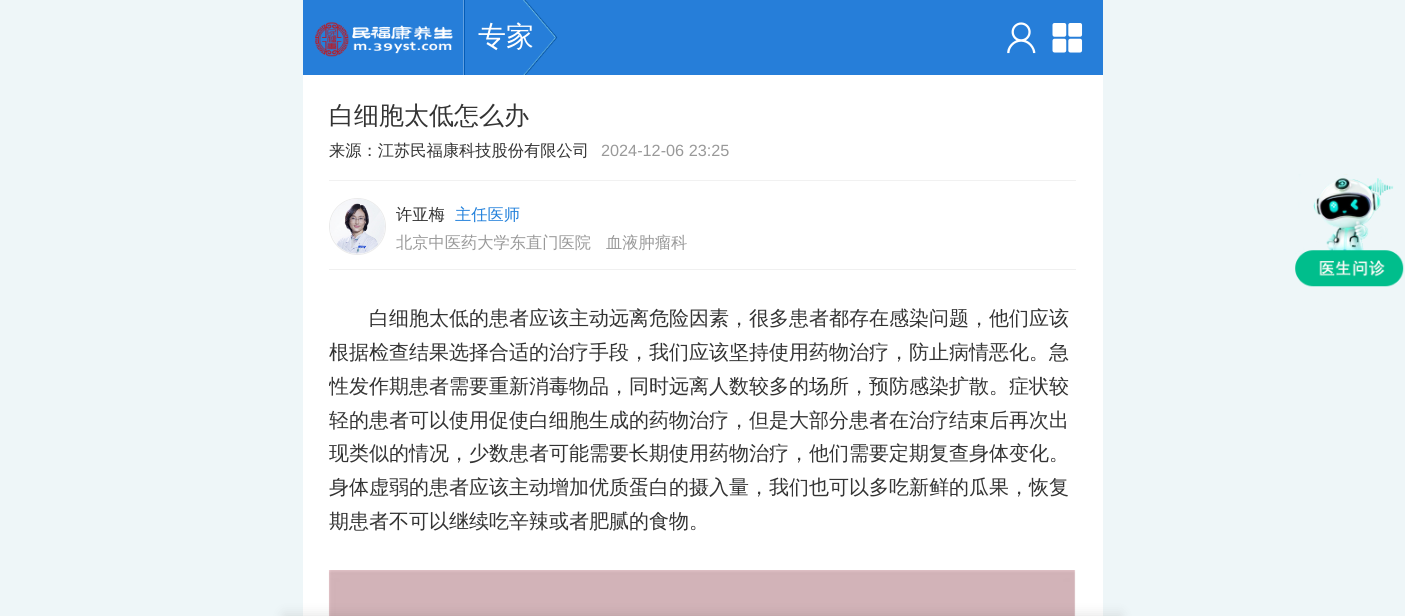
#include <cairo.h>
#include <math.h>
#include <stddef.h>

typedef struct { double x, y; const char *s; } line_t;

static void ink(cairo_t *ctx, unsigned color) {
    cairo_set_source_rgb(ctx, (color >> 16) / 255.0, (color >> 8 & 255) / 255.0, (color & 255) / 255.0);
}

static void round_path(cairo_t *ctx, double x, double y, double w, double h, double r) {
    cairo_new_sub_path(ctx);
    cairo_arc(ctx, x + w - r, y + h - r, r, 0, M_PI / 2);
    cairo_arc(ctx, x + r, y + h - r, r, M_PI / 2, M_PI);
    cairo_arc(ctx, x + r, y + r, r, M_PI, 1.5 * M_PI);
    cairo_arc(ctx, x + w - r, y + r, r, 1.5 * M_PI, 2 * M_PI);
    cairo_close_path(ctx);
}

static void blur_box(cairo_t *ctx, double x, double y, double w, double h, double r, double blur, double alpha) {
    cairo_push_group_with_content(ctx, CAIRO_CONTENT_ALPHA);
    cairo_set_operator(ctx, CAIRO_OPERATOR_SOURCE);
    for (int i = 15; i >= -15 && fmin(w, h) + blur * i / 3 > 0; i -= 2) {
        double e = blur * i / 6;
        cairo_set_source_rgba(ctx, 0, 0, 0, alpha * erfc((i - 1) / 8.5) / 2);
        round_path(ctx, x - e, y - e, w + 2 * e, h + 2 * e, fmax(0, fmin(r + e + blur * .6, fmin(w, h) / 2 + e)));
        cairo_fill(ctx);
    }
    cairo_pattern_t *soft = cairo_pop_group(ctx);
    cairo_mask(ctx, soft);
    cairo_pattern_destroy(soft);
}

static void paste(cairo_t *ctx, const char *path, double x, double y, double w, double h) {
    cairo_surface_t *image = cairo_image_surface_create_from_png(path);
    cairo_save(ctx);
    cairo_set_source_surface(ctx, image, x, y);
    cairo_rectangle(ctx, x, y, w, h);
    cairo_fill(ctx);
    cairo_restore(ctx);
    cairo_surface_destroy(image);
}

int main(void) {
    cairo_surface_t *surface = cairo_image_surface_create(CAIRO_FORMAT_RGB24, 1405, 616);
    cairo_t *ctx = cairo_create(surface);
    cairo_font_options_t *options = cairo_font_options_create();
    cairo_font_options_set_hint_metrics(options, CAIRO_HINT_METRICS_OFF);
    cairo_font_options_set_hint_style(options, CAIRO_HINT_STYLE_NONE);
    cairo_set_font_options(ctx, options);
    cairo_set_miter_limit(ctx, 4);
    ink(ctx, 0xEEF6F8);
    cairo_paint(ctx);
    ink(ctx, 0x267ED9);
    cairo_rectangle(ctx, 303, 0, 800, 75);
    cairo_fill(ctx);
    ink(ctx, 0x61A0E1);
    cairo_rectangle(ctx, 463, 0, 1, 75);
    cairo_fill(ctx);
    paste(ctx, "media/1.png", 315, 22, 138, 35);
    ink(ctx, 0x035CB7);
    cairo_rectangle(ctx, 464, 0, 1, 75);
    cairo_fill(ctx);
    cairo_select_font_face(ctx, "WenQuanYi Zen Hei Medium", CAIRO_FONT_SLANT_NORMAL, CAIRO_FONT_WEIGHT_NORMAL);
    cairo_set_font_size(ctx, 28);
    ink(ctx, 0xFFFFFF);
    cairo_move_to(ctx, 478, 46);
    cairo_show_text(ctx, "专家");
    paste(ctx, "media/2.png", 523, 0, 35, 75);
    paste(ctx, "media/3.png", 1007, 22, 29, 32);
    paste(ctx, "media/4.png", 1052, 23, 31, 30);
    cairo_rectangle(ctx, 303, 75, 800, 541);
    cairo_fill(ctx);
    cairo_set_font_size(ctx, 25);
    ink(ctx, 0x333333);
    cairo_move_to(ctx, 329, 124);
    cairo_show_text(ctx, "白细胞太低怎么办");
    ink(ctx, 0xF1F1F1);
    cairo_rectangle(ctx, 329, 180, 747, 1);
    cairo_fill(ctx);
    cairo_set_font_size(ctx, 16.25);
    ink(ctx, 0x333333);
    cairo_move_to(ctx, 329, 156);
    cairo_show_text(ctx, "来源：江苏民福康科技股份有限公司");
    cairo_select_font_face(ctx, "Liberation Sans", CAIRO_FONT_SLANT_NORMAL, CAIRO_FONT_WEIGHT_NORMAL);
    ink(ctx, 0x999999);
    cairo_move_to(ctx, 601, 156);
    cairo_show_text(ctx, "2024-12-06 23:25");
    ink(ctx, 0xF0F0F0);
    cairo_rectangle(ctx, 329, 269, 747, 1);
    cairo_fill(ctx);
    cairo_arc(ctx, 357.5, 226.5, 28, 0, 2 * M_PI);
    ink(ctx, 0xEAEAEA);
    cairo_set_line_width(ctx, 1);
    cairo_stroke(ctx);
    paste(ctx, "media/5.png", 330, 199, 55, 55);
    cairo_select_font_face(ctx, "WenQuanYi Zen Hei Medium", CAIRO_FONT_SLANT_NORMAL, CAIRO_FONT_WEIGHT_NORMAL);
    ink(ctx, 0x333333);
    cairo_move_to(ctx, 396, 220);
    cairo_show_text(ctx, "许亚梅");
    ink(ctx, 0x2381DB);
    cairo_move_to(ctx, 455, 220);
    cairo_show_text(ctx, "主任医师");
    ink(ctx, 0x999999);
    cairo_move_to(ctx, 396, 248);
    cairo_show_text(ctx, "北京中医药大学东直门医院");
    cairo_move_to(ctx, 606, 248);
    cairo_show_text(ctx, "血液肿瘤科");
    cairo_set_font_size(ctx, 20);
    ink(ctx, 0x333333);
    cairo_move_to(ctx, 369, 325);
    cairo_show_text(ctx, "白细胞太低的患者应该主动远离危险因素，很多患者都存在感染问题，他们应该");
    cairo_move_to(ctx, 329, 359);
    cairo_show_text(ctx, "根据检查结果选择合适的治疗手段，我们应该坚持使用药物治疗，防止病情恶化。急");
    cairo_save(ctx);
    cairo_rectangle(ctx, 329, 270, 747, 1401);
    cairo_clip(ctx);
    cairo_move_to(ctx, 329, 393);
    cairo_show_text(ctx, "性发作期患者需要重新消毒物品，同时远离人数较多的场所，预防感染扩散。症状较");
    cairo_restore(ctx);
    {
        static const line_t items[] = {
            {329, 427, "轻的患者可以使用促使白细胞生成的药物治疗，但是大部分患者在治疗结束后再次出"},
            {329, 460, "现类似的情况，少数患者可能需要长期使用药物治疗，他们需要定期复查身体变化。"},
            {329, 494, "身体虚弱的患者应该主动增加优质蛋白的摄入量，我们也可以多吃新鲜的瓜果，恢复"},
            {329, 528, "期患者不可以继续吃辛辣或者肥腻的食物。"},
        };
        for (size_t i = 0; i < sizeof items / sizeof *items; i++) {
            cairo_move_to(ctx, items[i].x, items[i].y);
            cairo_show_text(ctx, items[i].s);
        }
    }
    paste(ctx, "media/6.png", 328, 570, 748, 46);
    paste(ctx, "media/7.png", 1295, 174, 109, 113);
    ink(ctx, 0x000000);
    blur_box(ctx, 284, 614, 837, 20, 0, 6, 0.1);
    cairo_surface_write_to_png(surface, "image.png");
    cairo_font_options_destroy(options);
    cairo_destroy(ctx);
    cairo_surface_destroy(surface);
    return 0;
}
